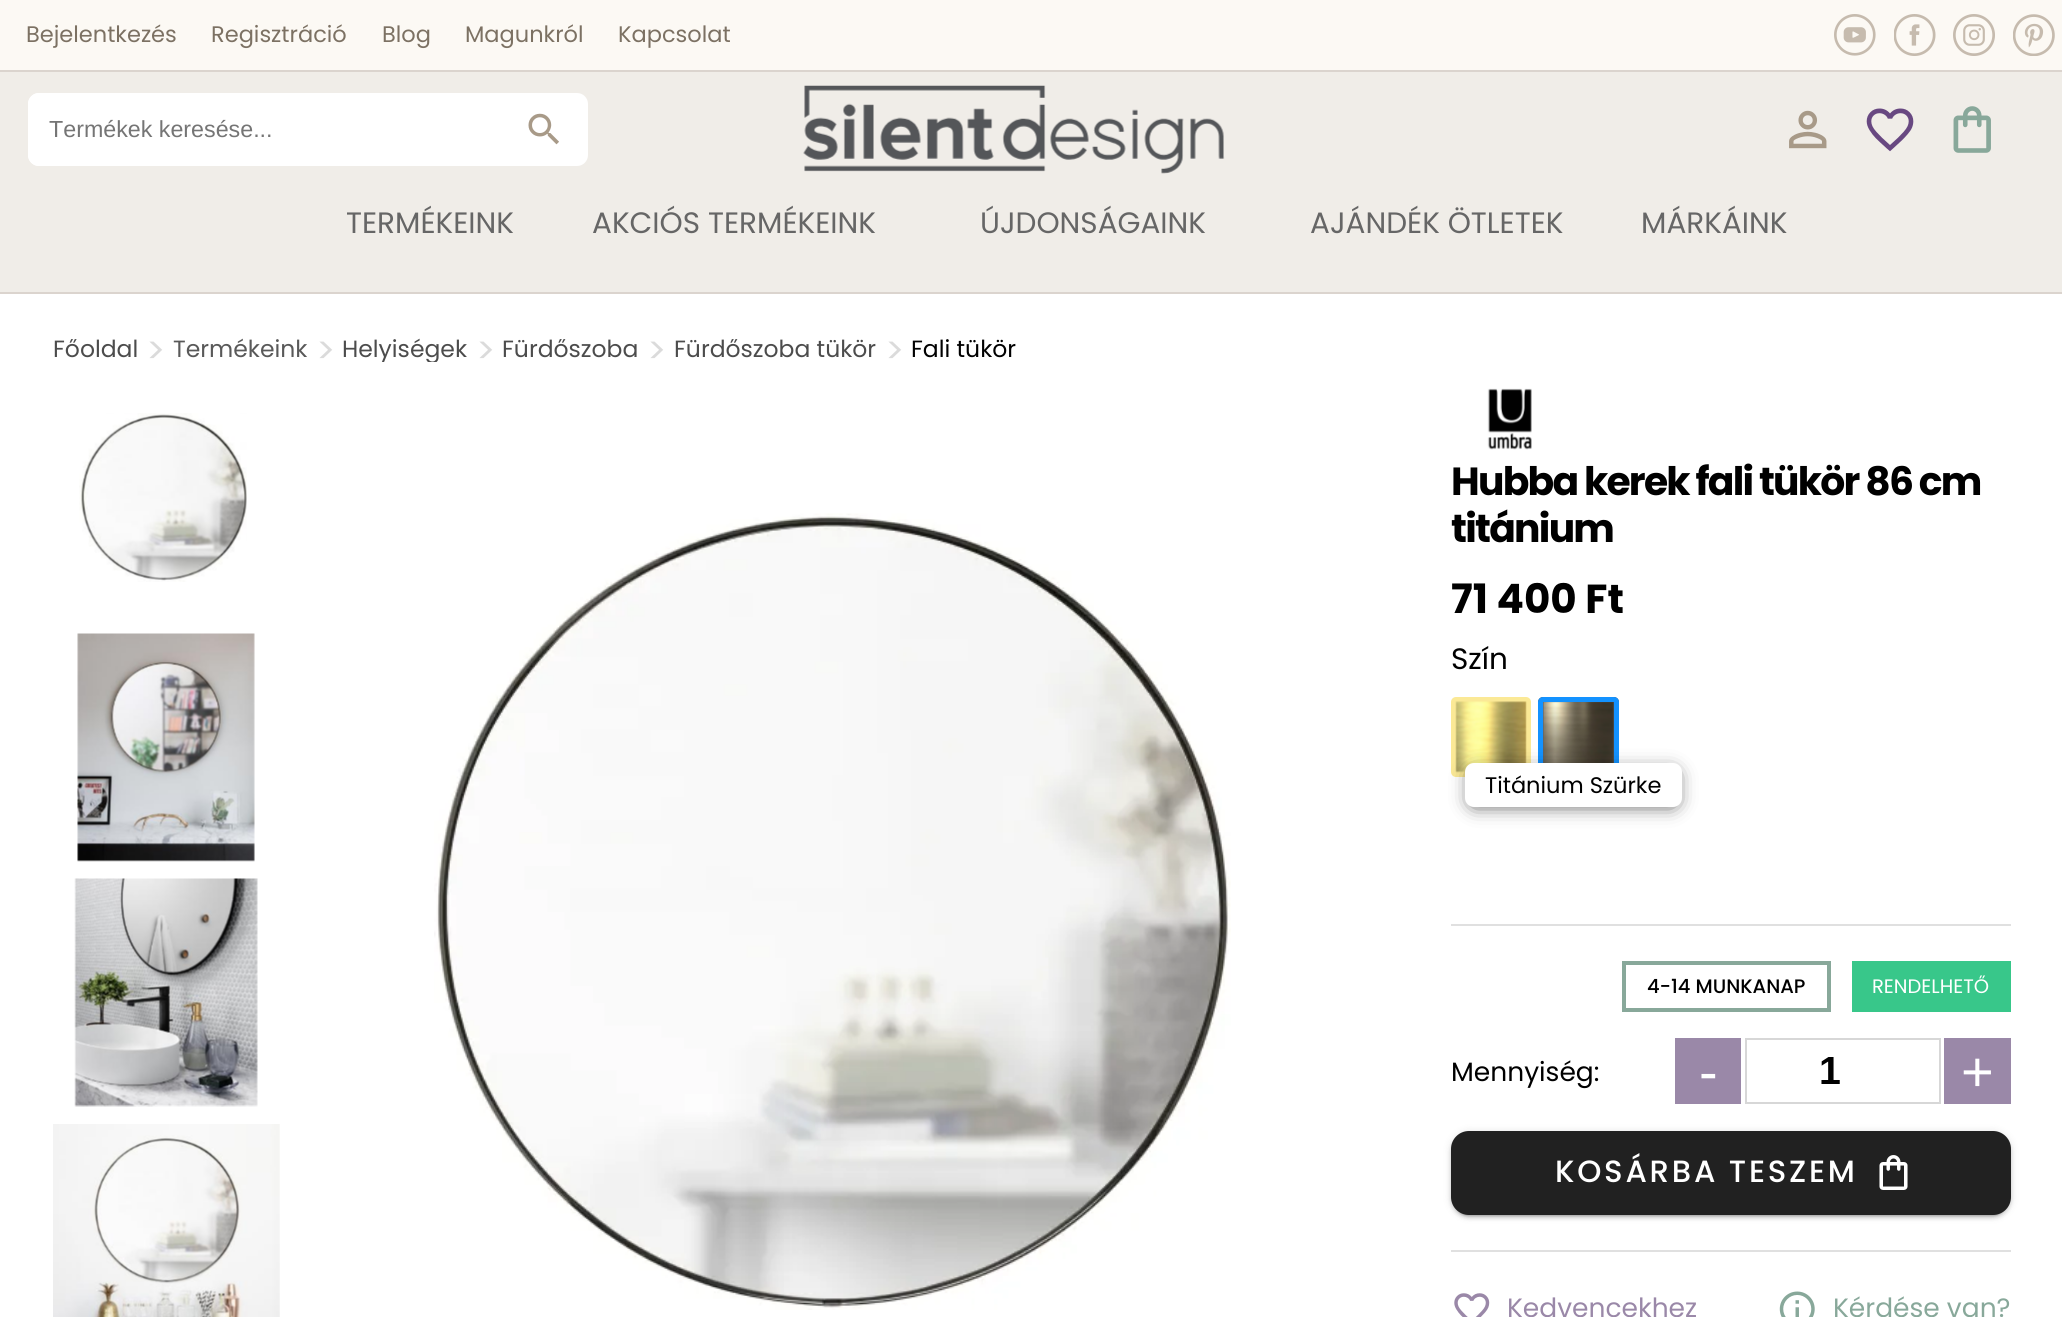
#include <cairo.h>
#include <math.h>
#include <stddef.h>

typedef struct { double x, y; const char *s; } line_t;
typedef struct { double x, y, w, h; unsigned color; } box_t;

static void ink(cairo_t *ctx, unsigned color) {
    cairo_set_source_rgb(ctx, (color >> 16) / 255.0, (color >> 8 & 255) / 255.0, (color & 255) / 255.0);
}

static void write_spaced(cairo_t *ctx, double x, double y, const char *s, double letter, double word) {
    cairo_move_to(ctx, x, y);
    while (*s) {
        char ch[5] = {0};
        int n = 0;
        do ch[n++] = *s++; while ((*s & 0xC0) == 0x80);
        cairo_show_text(ctx, ch);
        cairo_rel_move_to(ctx, letter + word * (*ch == ' '), 0);
    }
}

static void round_path(cairo_t *ctx, double x, double y, double w, double h, double r) {
    cairo_new_sub_path(ctx);
    cairo_arc(ctx, x + w - r, y + h - r, r, 0, M_PI / 2);
    cairo_arc(ctx, x + r, y + h - r, r, M_PI / 2, M_PI);
    cairo_arc(ctx, x + r, y + r, r, M_PI, 1.5 * M_PI);
    cairo_arc(ctx, x + w - r, y + r, r, 1.5 * M_PI, 2 * M_PI);
    cairo_close_path(ctx);
}

static void blur_box(cairo_t *ctx, double x, double y, double w, double h, double r, double blur, double alpha) {
    cairo_push_group_with_content(ctx, CAIRO_CONTENT_ALPHA);
    cairo_set_operator(ctx, CAIRO_OPERATOR_SOURCE);
    for (int i = 15; i >= -15 && fmin(w, h) + blur * i / 3 > 0; i -= 2) {
        double e = blur * i / 6;
        cairo_set_source_rgba(ctx, 0, 0, 0, alpha * erfc((i - 1) / 8.5) / 2);
        round_path(ctx, x - e, y - e, w + 2 * e, h + 2 * e, fmax(0, fmin(r + e + blur * .6, fmin(w, h) / 2 + e)));
        cairo_fill(ctx);
    }
    cairo_pattern_t *soft = cairo_pop_group(ctx);
    cairo_mask(ctx, soft);
    cairo_pattern_destroy(soft);
}

static void paste(cairo_t *ctx, const char *path, double x, double y, double w, double h) {
    cairo_surface_t *image = cairo_image_surface_create_from_png(path);
    cairo_save(ctx);
    cairo_set_source_surface(ctx, image, x, y);
    cairo_rectangle(ctx, x, y, w, h);
    cairo_fill(ctx);
    cairo_restore(ctx);
    cairo_surface_destroy(image);
}

int main(void) {
    cairo_surface_t *surface = cairo_image_surface_create(CAIRO_FORMAT_RGB24, 2062, 1317);
    cairo_t *ctx = cairo_create(surface);
    cairo_font_options_t *options = cairo_font_options_create();
    cairo_font_options_set_hint_metrics(options, CAIRO_HINT_METRICS_OFF);
    cairo_font_options_set_hint_style(options, CAIRO_HINT_STYLE_NONE);
    cairo_set_font_options(ctx, options);
    cairo_set_miter_limit(ctx, 4);
    ink(ctx, 0xFFFFFF);
    cairo_paint(ctx);
    {
        static const box_t items[] = {
            {0, 292, 2062, 2, 0xDBD4CE},
            {0, 72, 2062, 220, 0xF0EDE8},
            {0, 0, 2062, 70, 0xFCF9F4},
            {0, 70, 2062, 2, 0xDBD4CE},
        };
        for (size_t i = 0; i < sizeof items / sizeof *items; i++) {
            ink(ctx, items[i].color);
            cairo_rectangle(ctx, items[i].x, items[i].y, items[i].w, items[i].h);
            cairo_fill(ctx);
        }
    }
    cairo_select_font_face(ctx, "Poppins", CAIRO_FONT_SLANT_NORMAL, CAIRO_FONT_WEIGHT_NORMAL);
    cairo_set_font_size(ctx, 22.5);
    ink(ctx, 0x7C7163);
    {
        static const line_t items[] = {
            {26, 42, "Bejelentkezés"},
            {211, 42, "Regisztráció"},
            {382, 42, "Blog"},
            {465, 42, "Magunkról"},
            {618, 42, "Kapcsolat"},
        };
        for (size_t i = 0; i < sizeof items / sizeof *items; i++) {
            cairo_move_to(ctx, items[i].x, items[i].y);
            cairo_show_text(ctx, items[i].s);
        }
    }
    paste(ctx, "media/1.png", 1834, 14, 42, 42);
    paste(ctx, "media/2.png", 1894, 14, 42, 42);
    paste(ctx, "media/3.png", 1953, 14, 42, 42);
    paste(ctx, "media/4.png", 2013, 14, 42, 42);
    ink(ctx, 0xFFFFFF);
    round_path(ctx, 28, 93, 560, 73, 11);
    cairo_fill(ctx);
    cairo_new_path(ctx);
    cairo_move_to(ctx, 39, 93);
    cairo_line_to(ctx, 543, 93);
    cairo_line_to(ctx, 543, 166);
    cairo_line_to(ctx, 39, 166);
    cairo_curve_to(ctx, 33, 166, 28, 161, 28, 155);
    cairo_line_to(ctx, 28, 104);
    cairo_curve_to(ctx, 28, 98, 33, 93, 39, 93);
    cairo_close_path(ctx);
    cairo_fill(ctx);
    cairo_select_font_face(ctx, "Liberation Sans", CAIRO_FONT_SLANT_NORMAL, CAIRO_FONT_WEIGHT_NORMAL);
    cairo_set_font_size(ctx, 23.25);
    ink(ctx, 0x757575);
    cairo_move_to(ctx, 49, 137);
    cairo_show_text(ctx, "Termékek keresése...");
    paste(ctx, "media/5.png", 528, 113, 31, 32);
    paste(ctx, "media/6.png", 803, 85, 422, 89);
    paste(ctx, "media/7.png", 1789, 110, 38, 39);
    paste(ctx, "media/8.png", 1866, 108, 48, 44);
    paste(ctx, "media/9.png", 1953, 106, 38, 47);
    cairo_select_font_face(ctx, "Poppins", CAIRO_FONT_SLANT_NORMAL, CAIRO_FONT_WEIGHT_NORMAL);
    cairo_set_font_size(ctx, 29.5);
    ink(ctx, 0x666666);
    {
        static const line_t items[] = {
            {346, 233, "TERMÉKEINK"},
            {592, 233, "AKCIÓS TERMÉKEINK"},
            {980, 233, "ÚJDONSÁGAINK"},
            {1310, 233, "AJÁNDÉK ÖTLETEK"},
            {1641, 233, "MÁRKÁINK"},
        };
        for (size_t i = 0; i < sizeof items / sizeof *items; i++) {
            cairo_move_to(ctx, items[i].x, items[i].y);
            cairo_show_text(ctx, items[i].s);
        }
    }
    cairo_set_font_size(ctx, 23.5);
    ink(ctx, 0x4C4C4C);
    cairo_move_to(ctx, 53, 357);
    cairo_show_text(ctx, "Főoldal");
    cairo_set_font_size(ctx, 36);
    ink(ctx, 0xDBDBDB);
    cairo_move_to(ctx, 146, 363);
    cairo_show_text(ctx, ">");
    cairo_set_font_size(ctx, 23.5);
    ink(ctx, 0x595959);
    cairo_move_to(ctx, 173, 357);
    cairo_show_text(ctx, "Termékeink");
    cairo_set_font_size(ctx, 36);
    ink(ctx, 0xDBDBDB);
    cairo_move_to(ctx, 316, 363);
    cairo_show_text(ctx, ">");
    cairo_save(ctx);
    cairo_rectangle(ctx, 53, 338, 1958, 24);
    cairo_clip(ctx);
    cairo_set_font_size(ctx, 23.5);
    ink(ctx, 0x4C4C4C);
    cairo_move_to(ctx, 342, 357);
    cairo_show_text(ctx, "Helyiségek");
    cairo_restore(ctx);
    cairo_move_to(ctx, 476, 363);
    cairo_show_text(ctx, ">");
    cairo_set_font_size(ctx, 23.5);
    ink(ctx, 0x4C4C4C);
    cairo_move_to(ctx, 502, 357);
    cairo_show_text(ctx, "Fürdőszoba");
    cairo_set_font_size(ctx, 36);
    ink(ctx, 0xDBDBDB);
    cairo_move_to(ctx, 647, 363);
    cairo_show_text(ctx, ">");
    cairo_set_font_size(ctx, 23.5);
    ink(ctx, 0x4C4C4C);
    cairo_move_to(ctx, 674, 357);
    cairo_show_text(ctx, "Fürdőszoba tükör");
    cairo_set_font_size(ctx, 36);
    ink(ctx, 0xDBDBDB);
    cairo_move_to(ctx, 885, 363);
    cairo_show_text(ctx, ">");
    cairo_set_font_size(ctx, 23.5);
    ink(ctx, 0x000000);
    cairo_move_to(ctx, 911, 357);
    cairo_show_text(ctx, "Fali tükör");
    paste(ctx, "media/10.png", 79, 413, 168, 169);
    paste(ctx, "media/11.png", 77, 633, 178, 229);
    paste(ctx, "media/12.png", 74, 878, 184, 229);
    paste(ctx, "media/13.png", 53, 1124, 227, 193);
    paste(ctx, "media/14.png", 434, 513, 797, 797);
    paste(ctx, "media/15.png", 1487, 388, 45, 62);
    cairo_select_font_face(ctx, "Poppins", CAIRO_FONT_SLANT_NORMAL, CAIRO_FONT_WEIGHT_BOLD);
    cairo_set_font_size(ctx, 39.25);
    write_spaced(ctx, 1451, 495, "Hubba kerek fali tükör 86 cm", -1.75, 0);
    write_spaced(ctx, 1451, 542, "titánium", -1.75, 0);
    cairo_set_font_size(ctx, 40.5);
    cairo_move_to(ctx, 1451, 613);
    cairo_show_text(ctx, "71 400 Ft");
    cairo_select_font_face(ctx, "Poppins", CAIRO_FONT_SLANT_NORMAL, CAIRO_FONT_WEIGHT_NORMAL);
    cairo_set_font_size(ctx, 29.5);
    cairo_move_to(ctx, 1451, 669);
    cairo_show_text(ctx, "Szín");
    ink(ctx, 0xFBE996);
    round_path(ctx, 1451, 697, 80, 80, 5);
    cairo_fill(ctx);
    paste(ctx, "media/16.png", 1455, 701, 72, 72);
    ink(ctx, 0x565F6B);
    round_path(ctx, 1538, 697, 81, 80, 5);
    cairo_fill(ctx);
    paste(ctx, "media/17.png", 1543, 702, 71, 61);
    round_path(ctx, 1540.5, 699.5, 76, 75, 2.5);
    ink(ctx, 0x1392FF);
    cairo_set_line_width(ctx, 5);
    cairo_stroke(ctx);
    ink(ctx, 0x000000);
    blur_box(ctx, 1474, 775, 199, 27, 0, 10.5, 1);
    ink(ctx, 0xFFFFFF);
    round_path(ctx, 1465, 763, 217, 44, 9);
    cairo_fill(ctx);
    cairo_set_font_size(ctx, 22.5);
    ink(ctx, 0x000000);
    cairo_move_to(ctx, 1485, 793);
    cairo_show_text(ctx, "Titánium Szürke");
    ink(ctx, 0xE0E0E0);
    cairo_rectangle(ctx, 1451, 924, 560, 2);
    cairo_fill(ctx);
    cairo_rectangle(ctx, 1624, 963, 205, 47);
    ink(ctx, 0x88A89A);
    cairo_set_line_width(ctx, 4);
    cairo_stroke(ctx);
    cairo_select_font_face(ctx, "Poppins Medium", CAIRO_FONT_SLANT_NORMAL, CAIRO_FONT_WEIGHT_NORMAL);
    cairo_set_font_size(ctx, 19.5);
    ink(ctx, 0x000000);
    cairo_move_to(ctx, 1647, 993);
    cairo_show_text(ctx, "4-14 MUNKANAP");
    ink(ctx, 0x38C78A);
    cairo_rectangle(ctx, 1852, 961, 159, 51);
    cairo_fill(ctx);
    cairo_select_font_face(ctx, "Poppins", CAIRO_FONT_SLANT_NORMAL, CAIRO_FONT_WEIGHT_NORMAL);
    ink(ctx, 0xFFFFFF);
    cairo_move_to(ctx, 1872, 993);
    cairo_show_text(ctx, "RENDELHETŐ");
    cairo_set_font_size(ctx, 26.5);
    ink(ctx, 0x000000);
    cairo_move_to(ctx, 1451, 1081);
    cairo_show_text(ctx, "Mennyiség:");
    ink(ctx, 0x9A88A8);
    cairo_rectangle(ctx, 1675, 1038, 66, 66);
    cairo_fill(ctx);
    cairo_select_font_face(ctx, "Liberation Sans", CAIRO_FONT_SLANT_NORMAL, CAIRO_FONT_WEIGHT_NORMAL);
    cairo_set_font_size(ctx, 56);
    ink(ctx, 0xFFFFFF);
    cairo_move_to(ctx, 1699, 1091);
    cairo_show_text(ctx, "-");
    cairo_rectangle(ctx, 1746, 1039, 194, 64);
    ink(ctx, 0xD7D7D7);
    cairo_set_line_width(ctx, 2);
    cairo_stroke(ctx);
    cairo_select_font_face(ctx, "Liberation Sans", CAIRO_FONT_SLANT_NORMAL, CAIRO_FONT_WEIGHT_BOLD);
    cairo_set_font_size(ctx, 39.25);
    ink(ctx, 0x000000);
    cairo_move_to(ctx, 1819, 1084);
    cairo_show_text(ctx, "1");
    ink(ctx, 0x9A88A8);
    cairo_rectangle(ctx, 1944, 1038, 67, 66);
    cairo_fill(ctx);
    cairo_select_font_face(ctx, "Liberation Sans", CAIRO_FONT_SLANT_NORMAL, CAIRO_FONT_WEIGHT_NORMAL);
    cairo_set_font_size(ctx, 56);
    ink(ctx, 0xFFFFFF);
    cairo_move_to(ctx, 1961, 1091);
    cairo_show_text(ctx, "+");
    ink(ctx, 0x000000);
    blur_box(ctx, 1451, 1132, 560, 84, 18, 4.5, 0.12);
    blur_box(ctx, 1451, 1134, 560, 84, 18, 2, 0.14);
    blur_box(ctx, 1454, 1139, 553, 77, 14, 1, 0.2);
    ink(ctx, 0x212121);
    round_path(ctx, 1451, 1131, 560, 84, 18);
    cairo_fill(ctx);
    cairo_select_font_face(ctx, "Poppins Medium", CAIRO_FONT_SLANT_NORMAL, CAIRO_FONT_WEIGHT_NORMAL);
    cairo_set_font_size(ctx, 30.75);
    ink(ctx, 0xFFFFFF);
    write_spaced(ctx, 1555, 1182, "KOSÁRBA TESZEM", 2.75, 0);
    paste(ctx, "media/18.png", 1879, 1155, 29, 35);
    ink(ctx, 0xE0E0E0);
    cairo_rectangle(ctx, 1451, 1250, 560, 2);
    cairo_fill(ctx);
    paste(ctx, "media/19.png", 1454, 1293, 36, 24);
    cairo_select_font_face(ctx, "Poppins", CAIRO_FONT_SLANT_NORMAL, CAIRO_FONT_WEIGHT_NORMAL);
    cairo_set_font_size(ctx, 26.5);
    ink(ctx, 0x9A88A8);
    cairo_move_to(ctx, 1507, 1317);
    cairo_show_text(ctx, "Kedvencekhez");
    paste(ctx, "media/20.png", 1779, 1291, 36, 26);
    ink(ctx, 0x88A89A);
    cairo_move_to(ctx, 1833, 1317);
    cairo_show_text(ctx, "Kérdése van?");
    cairo_surface_write_to_png(surface, "image.png");
    cairo_font_options_destroy(options);
    cairo_destroy(ctx);
    cairo_surface_destroy(surface);
    return 0;
}
